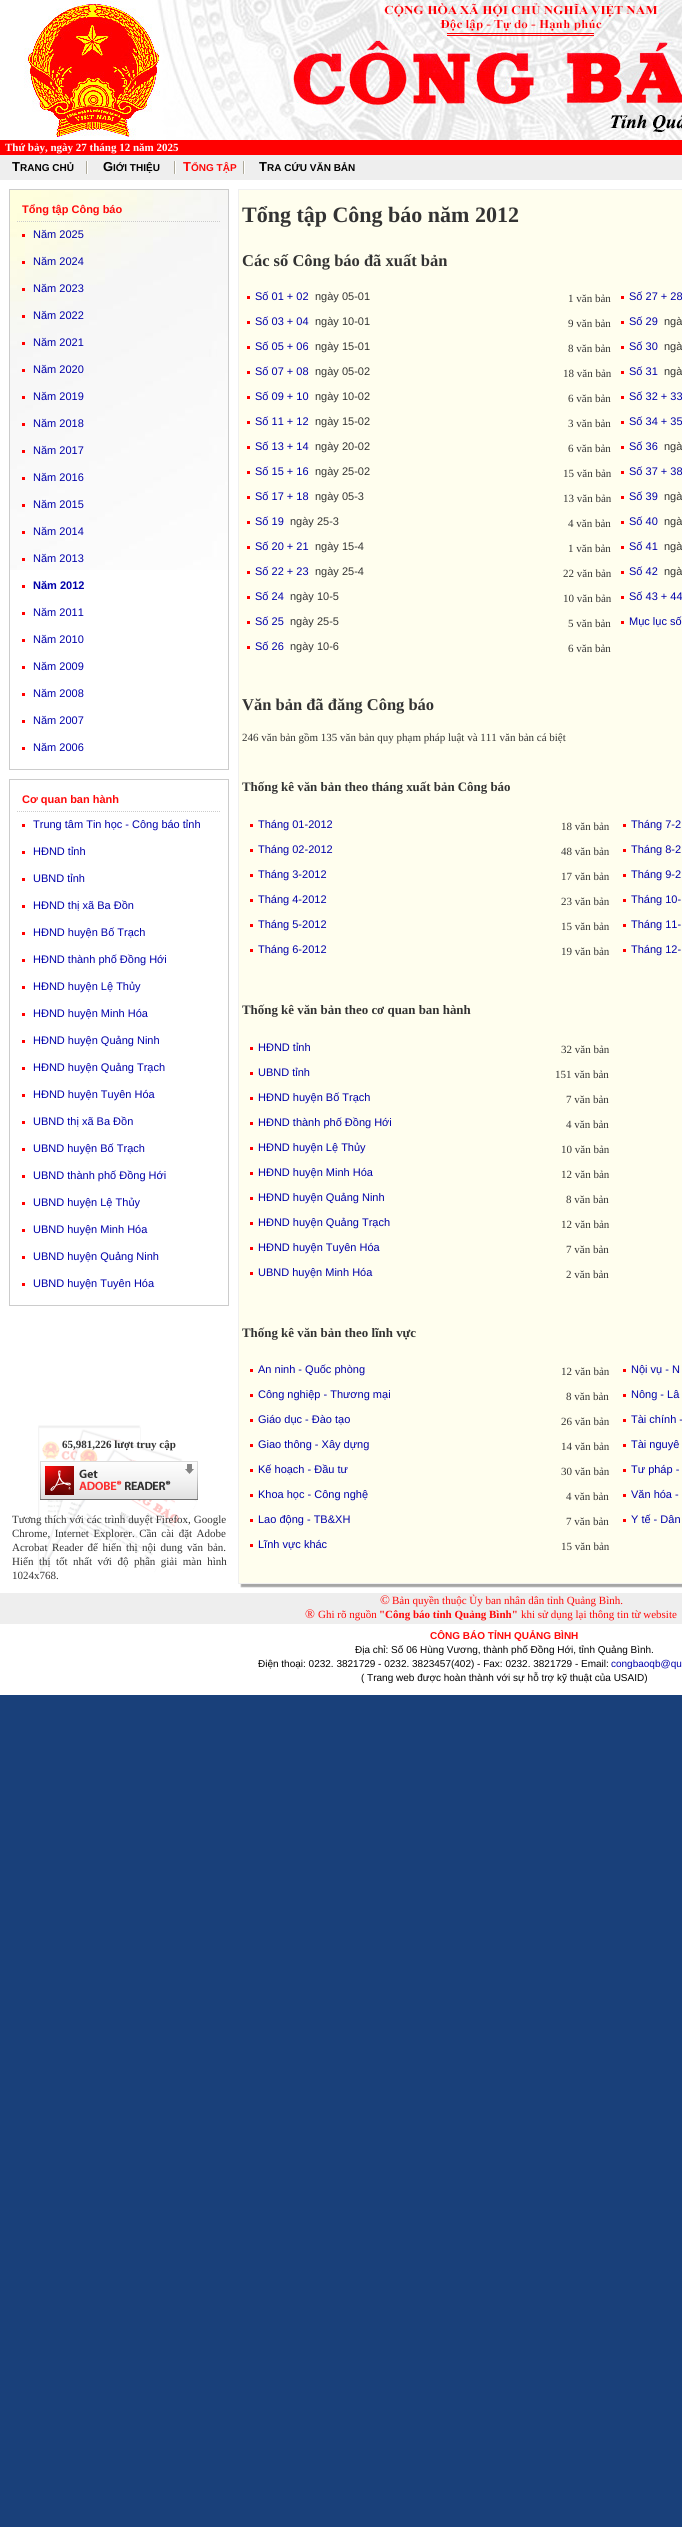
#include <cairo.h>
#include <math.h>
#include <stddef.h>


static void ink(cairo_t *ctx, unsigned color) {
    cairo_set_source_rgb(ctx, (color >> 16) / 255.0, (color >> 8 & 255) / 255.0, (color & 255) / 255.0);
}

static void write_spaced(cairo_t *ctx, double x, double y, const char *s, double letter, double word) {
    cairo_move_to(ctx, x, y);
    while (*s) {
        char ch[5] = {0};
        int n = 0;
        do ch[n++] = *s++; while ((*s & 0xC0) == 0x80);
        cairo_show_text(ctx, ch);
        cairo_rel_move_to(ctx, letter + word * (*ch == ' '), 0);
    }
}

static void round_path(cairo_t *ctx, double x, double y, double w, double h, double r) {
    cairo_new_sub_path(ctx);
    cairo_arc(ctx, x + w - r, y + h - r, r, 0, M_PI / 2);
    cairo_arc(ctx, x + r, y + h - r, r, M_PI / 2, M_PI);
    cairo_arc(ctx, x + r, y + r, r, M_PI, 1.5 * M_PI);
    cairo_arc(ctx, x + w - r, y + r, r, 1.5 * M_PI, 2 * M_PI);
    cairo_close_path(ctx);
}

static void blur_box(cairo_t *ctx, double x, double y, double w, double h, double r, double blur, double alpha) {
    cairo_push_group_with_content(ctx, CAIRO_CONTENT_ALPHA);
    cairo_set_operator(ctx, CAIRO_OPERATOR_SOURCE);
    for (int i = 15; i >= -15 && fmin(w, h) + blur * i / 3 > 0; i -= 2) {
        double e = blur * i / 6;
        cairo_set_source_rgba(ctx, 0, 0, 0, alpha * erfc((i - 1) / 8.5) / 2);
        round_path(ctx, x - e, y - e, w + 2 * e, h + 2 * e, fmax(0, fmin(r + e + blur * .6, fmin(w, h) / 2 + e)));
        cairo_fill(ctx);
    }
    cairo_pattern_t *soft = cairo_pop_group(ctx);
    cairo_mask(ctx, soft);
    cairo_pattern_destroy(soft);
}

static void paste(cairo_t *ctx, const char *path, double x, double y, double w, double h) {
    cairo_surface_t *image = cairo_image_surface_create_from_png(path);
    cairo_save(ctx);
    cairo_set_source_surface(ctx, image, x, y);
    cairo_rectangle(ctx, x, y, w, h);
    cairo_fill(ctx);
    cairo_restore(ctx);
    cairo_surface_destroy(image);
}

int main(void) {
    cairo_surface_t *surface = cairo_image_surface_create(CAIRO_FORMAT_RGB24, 682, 2527);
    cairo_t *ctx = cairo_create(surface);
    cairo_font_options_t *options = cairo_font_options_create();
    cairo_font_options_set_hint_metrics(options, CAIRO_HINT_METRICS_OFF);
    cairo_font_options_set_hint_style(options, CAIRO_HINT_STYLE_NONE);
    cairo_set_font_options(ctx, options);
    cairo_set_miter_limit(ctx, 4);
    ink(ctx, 0x19407A);
    cairo_paint(ctx);
    ink(ctx, 0xFFFFFF);
    cairo_rectangle(ctx, 0, 0, 682, 1695);
    cairo_fill(ctx);
    paste(ctx, "media/1.png", 24, 0, 658, 140);
    ink(ctx, 0xFF0000);
    cairo_rectangle(ctx, 0, 140, 682, 15);
    cairo_fill(ctx);
    cairo_select_font_face(ctx, "Liberation Serif", CAIRO_FONT_SLANT_NORMAL, CAIRO_FONT_WEIGHT_BOLD);
    cairo_set_font_size(ctx, 11);
    ink(ctx, 0xFFFFFF);
    cairo_move_to(ctx, 5, 151);
    cairo_show_text(ctx, "Thứ bảy, ngày 27 tháng 12 năm 2025");
    ink(ctx, 0xEEEEEE);
    cairo_rectangle(ctx, 0, 155, 682, 25);
    cairo_fill(ctx);
    cairo_select_font_face(ctx, "Liberation Sans", CAIRO_FONT_SLANT_NORMAL, CAIRO_FONT_WEIGHT_BOLD);
    cairo_set_font_size(ctx, 13);
    ink(ctx, 0x000000);
    cairo_move_to(ctx, 12, 171);
    cairo_show_text(ctx, "T");
    cairo_set_font_size(ctx, 10);
    cairo_move_to(ctx, 20, 171);
    cairo_show_text(ctx, "RANG CHỦ");
    paste(ctx, "media/2.png", 86, 161, 2, 13);
    cairo_set_font_size(ctx, 13);
    cairo_move_to(ctx, 103, 171);
    cairo_show_text(ctx, "G");
    cairo_set_font_size(ctx, 10);
    cairo_move_to(ctx, 113, 171);
    cairo_show_text(ctx, "IỚI THIỆU");
    paste(ctx, "media/2.png", 174, 161, 2, 13);
    cairo_set_font_size(ctx, 13);
    ink(ctx, 0xFF0808);
    cairo_move_to(ctx, 183, 171);
    cairo_show_text(ctx, "T");
    cairo_set_font_size(ctx, 10);
    cairo_move_to(ctx, 191, 171);
    cairo_show_text(ctx, "ỔNG TẬP");
    paste(ctx, "media/2.png", 243, 161, 2, 13);
    cairo_set_font_size(ctx, 13);
    ink(ctx, 0x000000);
    cairo_move_to(ctx, 259, 171);
    cairo_show_text(ctx, "T");
    cairo_set_font_size(ctx, 10);
    cairo_move_to(ctx, 267, 171);
    cairo_show_text(ctx, "RA CỨU VĂN BẢN");
    paste(ctx, "media/3.png", 10, 190, 218, 380);
    cairo_rectangle(ctx, 9.5, 189.5, 219, 580);
    ink(ctx, 0xCCCCCC);
    cairo_set_line_width(ctx, 1);
    cairo_stroke(ctx);
    cairo_new_path(ctx);
    cairo_move_to(ctx, 17, 221.5);
    cairo_line_to(ctx, 221, 221.5);
    cairo_set_dash(ctx, (double[]){1, 1}, 2, 0);
    cairo_stroke(ctx);
    cairo_set_font_size(ctx, 11);
    ink(ctx, 0xFF0808);
    cairo_move_to(ctx, 22, 213);
    cairo_show_text(ctx, "Tổng tập Công báo");
    ink(ctx, 0xFF0000);
    cairo_rectangle(ctx, 22, 234, 3, 3);
    cairo_fill(ctx);
    cairo_select_font_face(ctx, "Liberation Sans", CAIRO_FONT_SLANT_NORMAL, CAIRO_FONT_WEIGHT_NORMAL);
    ink(ctx, 0x0000AA);
    cairo_move_to(ctx, 33, 238);
    cairo_show_text(ctx, "Năm 2025");
    ink(ctx, 0xFF0000);
    cairo_rectangle(ctx, 22, 261, 3, 3);
    cairo_fill(ctx);
    ink(ctx, 0x0000AA);
    cairo_move_to(ctx, 33, 265);
    cairo_show_text(ctx, "Năm 2024");
    ink(ctx, 0xFF0000);
    cairo_rectangle(ctx, 22, 288, 3, 3);
    cairo_fill(ctx);
    ink(ctx, 0x0000AA);
    cairo_move_to(ctx, 33, 292);
    cairo_show_text(ctx, "Năm 2023");
    ink(ctx, 0xFF0000);
    cairo_rectangle(ctx, 22, 315, 3, 3);
    cairo_fill(ctx);
    ink(ctx, 0x0000AA);
    cairo_move_to(ctx, 33, 319);
    cairo_show_text(ctx, "Năm 2022");
    ink(ctx, 0xFF0000);
    cairo_rectangle(ctx, 22, 342, 3, 3);
    cairo_fill(ctx);
    ink(ctx, 0x0000AA);
    cairo_move_to(ctx, 33, 346);
    cairo_show_text(ctx, "Năm 2021");
    ink(ctx, 0xFF0000);
    cairo_rectangle(ctx, 22, 369, 3, 3);
    cairo_fill(ctx);
    ink(ctx, 0x0000AA);
    cairo_move_to(ctx, 33, 373);
    cairo_show_text(ctx, "Năm 2020");
    ink(ctx, 0xFF0000);
    cairo_rectangle(ctx, 22, 396, 3, 3);
    cairo_fill(ctx);
    ink(ctx, 0x0000AA);
    cairo_move_to(ctx, 33, 400);
    cairo_show_text(ctx, "Năm 2019");
    ink(ctx, 0xFF0000);
    cairo_rectangle(ctx, 22, 423, 3, 3);
    cairo_fill(ctx);
    ink(ctx, 0x0000AA);
    cairo_move_to(ctx, 33, 427);
    cairo_show_text(ctx, "Năm 2018");
    ink(ctx, 0xFF0000);
    cairo_rectangle(ctx, 22, 450, 3, 3);
    cairo_fill(ctx);
    ink(ctx, 0x0000AA);
    cairo_move_to(ctx, 33, 454);
    cairo_show_text(ctx, "Năm 2017");
    ink(ctx, 0xFF0000);
    cairo_rectangle(ctx, 22, 477, 3, 3);
    cairo_fill(ctx);
    ink(ctx, 0x0000AA);
    cairo_move_to(ctx, 33, 481);
    cairo_show_text(ctx, "Năm 2016");
    ink(ctx, 0xFF0000);
    cairo_rectangle(ctx, 22, 504, 3, 3);
    cairo_fill(ctx);
    ink(ctx, 0x0000AA);
    cairo_move_to(ctx, 33, 508);
    cairo_show_text(ctx, "Năm 2015");
    ink(ctx, 0xFF0000);
    cairo_rectangle(ctx, 22, 531, 3, 3);
    cairo_fill(ctx);
    ink(ctx, 0x0000AA);
    cairo_move_to(ctx, 33, 535);
    cairo_show_text(ctx, "Năm 2014");
    ink(ctx, 0xFF0000);
    cairo_rectangle(ctx, 22, 558, 3, 3);
    cairo_fill(ctx);
    ink(ctx, 0x0000AA);
    cairo_move_to(ctx, 33, 562);
    cairo_show_text(ctx, "Năm 2013");
    ink(ctx, 0xFF0000);
    cairo_rectangle(ctx, 22, 585, 3, 3);
    cairo_fill(ctx);
    cairo_select_font_face(ctx, "Liberation Sans", CAIRO_FONT_SLANT_NORMAL, CAIRO_FONT_WEIGHT_BOLD);
    ink(ctx, 0x0000AA);
    cairo_move_to(ctx, 33, 589);
    cairo_show_text(ctx, "Năm 2012");
    ink(ctx, 0xFF0000);
    cairo_rectangle(ctx, 22, 612, 3, 3);
    cairo_fill(ctx);
    cairo_select_font_face(ctx, "Liberation Sans", CAIRO_FONT_SLANT_NORMAL, CAIRO_FONT_WEIGHT_NORMAL);
    ink(ctx, 0x0000AA);
    cairo_move_to(ctx, 33, 616);
    cairo_show_text(ctx, "Năm 2011");
    ink(ctx, 0xFF0000);
    cairo_rectangle(ctx, 22, 639, 3, 3);
    cairo_fill(ctx);
    ink(ctx, 0x0000AA);
    cairo_move_to(ctx, 33, 643);
    cairo_show_text(ctx, "Năm 2010");
    ink(ctx, 0xFF0000);
    cairo_rectangle(ctx, 22, 666, 3, 3);
    cairo_fill(ctx);
    ink(ctx, 0x0000AA);
    cairo_move_to(ctx, 33, 670);
    cairo_show_text(ctx, "Năm 2009");
    ink(ctx, 0xFF0000);
    cairo_rectangle(ctx, 22, 693, 3, 3);
    cairo_fill(ctx);
    ink(ctx, 0x0000AA);
    cairo_move_to(ctx, 33, 697);
    cairo_show_text(ctx, "Năm 2008");
    ink(ctx, 0xFF0000);
    cairo_rectangle(ctx, 22, 720, 3, 3);
    cairo_fill(ctx);
    ink(ctx, 0x0000AA);
    cairo_move_to(ctx, 33, 724);
    cairo_show_text(ctx, "Năm 2007");
    ink(ctx, 0xFF0000);
    cairo_rectangle(ctx, 22, 747, 3, 3);
    cairo_fill(ctx);
    ink(ctx, 0x0000AA);
    cairo_move_to(ctx, 33, 751);
    cairo_show_text(ctx, "Năm 2006");
    cairo_rectangle(ctx, 9.5, 779.5, 219, 526);
    ink(ctx, 0xCCCCCC);
    cairo_set_dash(ctx, NULL, 0, 0);
    cairo_stroke(ctx);
    cairo_new_path(ctx);
    cairo_move_to(ctx, 17, 811.5);
    cairo_line_to(ctx, 221, 811.5);
    cairo_set_dash(ctx, (double[]){1, 1}, 2, 0);
    cairo_stroke(ctx);
    cairo_select_font_face(ctx, "Liberation Sans", CAIRO_FONT_SLANT_NORMAL, CAIRO_FONT_WEIGHT_BOLD);
    ink(ctx, 0xFF0808);
    cairo_move_to(ctx, 22, 803);
    cairo_show_text(ctx, "Cơ quan ban hành");
    ink(ctx, 0xFF0000);
    cairo_rectangle(ctx, 22, 824, 3, 3);
    cairo_fill(ctx);
    cairo_select_font_face(ctx, "Liberation Sans", CAIRO_FONT_SLANT_NORMAL, CAIRO_FONT_WEIGHT_NORMAL);
    ink(ctx, 0x0000AA);
    cairo_move_to(ctx, 33, 828);
    cairo_show_text(ctx, "Trung tâm Tin học - Công báo tỉnh");
    ink(ctx, 0xFF0000);
    cairo_rectangle(ctx, 22, 851, 3, 3);
    cairo_fill(ctx);
    ink(ctx, 0x0000AA);
    cairo_move_to(ctx, 33, 855);
    cairo_show_text(ctx, "HĐND tỉnh");
    ink(ctx, 0xFF0000);
    cairo_rectangle(ctx, 22, 878, 3, 3);
    cairo_fill(ctx);
    ink(ctx, 0x0000AA);
    cairo_move_to(ctx, 33, 882);
    cairo_show_text(ctx, "UBND tỉnh");
    ink(ctx, 0xFF0000);
    cairo_rectangle(ctx, 22, 905, 3, 3);
    cairo_fill(ctx);
    ink(ctx, 0x0000AA);
    cairo_move_to(ctx, 33, 909);
    cairo_show_text(ctx, "HĐND thị xã Ba Đồn");
    ink(ctx, 0xFF0000);
    cairo_rectangle(ctx, 22, 932, 3, 3);
    cairo_fill(ctx);
    ink(ctx, 0x0000AA);
    cairo_move_to(ctx, 33, 936);
    cairo_show_text(ctx, "HĐND huyện Bố Trạch");
    ink(ctx, 0xFF0000);
    cairo_rectangle(ctx, 22, 959, 3, 3);
    cairo_fill(ctx);
    ink(ctx, 0x0000AA);
    cairo_move_to(ctx, 33, 963);
    cairo_show_text(ctx, "HĐND thành phố Đồng Hới");
    ink(ctx, 0xFF0000);
    cairo_rectangle(ctx, 22, 986, 3, 3);
    cairo_fill(ctx);
    ink(ctx, 0x0000AA);
    cairo_move_to(ctx, 33, 990);
    cairo_show_text(ctx, "HĐND huyện Lệ Thủy");
    ink(ctx, 0xFF0000);
    cairo_rectangle(ctx, 22, 1013, 3, 3);
    cairo_fill(ctx);
    ink(ctx, 0x0000AA);
    cairo_move_to(ctx, 33, 1017);
    cairo_show_text(ctx, "HĐND huyện Minh Hóa");
    ink(ctx, 0xFF0000);
    cairo_rectangle(ctx, 22, 1040, 3, 3);
    cairo_fill(ctx);
    ink(ctx, 0x0000AA);
    cairo_move_to(ctx, 33, 1044);
    cairo_show_text(ctx, "HĐND huyện Quảng Ninh");
    ink(ctx, 0xFF0000);
    cairo_rectangle(ctx, 22, 1067, 3, 3);
    cairo_fill(ctx);
    ink(ctx, 0x0000AA);
    cairo_move_to(ctx, 33, 1071);
    cairo_show_text(ctx, "HĐND huyện Quảng Trạch");
    ink(ctx, 0xFF0000);
    cairo_rectangle(ctx, 22, 1094, 3, 3);
    cairo_fill(ctx);
    ink(ctx, 0x0000AA);
    cairo_move_to(ctx, 33, 1098);
    cairo_show_text(ctx, "HĐND huyện Tuyên Hóa");
    ink(ctx, 0xFF0000);
    cairo_rectangle(ctx, 22, 1121, 3, 3);
    cairo_fill(ctx);
    ink(ctx, 0x0000AA);
    cairo_move_to(ctx, 33, 1125);
    cairo_show_text(ctx, "UBND thị xã Ba Đồn");
    ink(ctx, 0xFF0000);
    cairo_rectangle(ctx, 22, 1148, 3, 3);
    cairo_fill(ctx);
    ink(ctx, 0x0000AA);
    cairo_move_to(ctx, 33, 1152);
    cairo_show_text(ctx, "UBND huyện Bố Trạch");
    ink(ctx, 0xFF0000);
    cairo_rectangle(ctx, 22, 1175, 3, 3);
    cairo_fill(ctx);
    ink(ctx, 0x0000AA);
    cairo_move_to(ctx, 33, 1179);
    cairo_show_text(ctx, "UBND thành phố Đồng Hới");
    ink(ctx, 0xFF0000);
    cairo_rectangle(ctx, 22, 1202, 3, 3);
    cairo_fill(ctx);
    ink(ctx, 0x0000AA);
    cairo_move_to(ctx, 33, 1206);
    cairo_show_text(ctx, "UBND huyện Lệ Thủy");
    ink(ctx, 0xFF0000);
    cairo_rectangle(ctx, 22, 1229, 3, 3);
    cairo_fill(ctx);
    ink(ctx, 0x0000AA);
    cairo_move_to(ctx, 33, 1233);
    cairo_show_text(ctx, "UBND huyện Minh Hóa");
    ink(ctx, 0xFF0000);
    cairo_rectangle(ctx, 22, 1256, 3, 3);
    cairo_fill(ctx);
    ink(ctx, 0x0000AA);
    cairo_move_to(ctx, 33, 1260);
    cairo_show_text(ctx, "UBND huyện Quảng Ninh");
    ink(ctx, 0xFF0000);
    cairo_rectangle(ctx, 22, 1283, 3, 3);
    cairo_fill(ctx);
    ink(ctx, 0x0000AA);
    cairo_move_to(ctx, 33, 1287);
    cairo_show_text(ctx, "UBND huyện Tuyên Hóa");
    ink(ctx, 0xA6A6A6);
    blur_box(ctx, 241, 192, 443, 1395, 0, 0.5, 1);
    ink(ctx, 0xFFFEEE);
    cairo_rectangle(ctx, 238.5, 189.5, 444, 1394);
    cairo_fill_preserve(ctx);
    ink(ctx, 0xF0F0F0);
    cairo_set_dash(ctx, NULL, 0, 0);
    cairo_stroke(ctx);
    cairo_select_font_face(ctx, "Liberation Serif", CAIRO_FONT_SLANT_NORMAL, CAIRO_FONT_WEIGHT_BOLD);
    cairo_set_font_size(ctx, 22);
    ink(ctx, 0x333333);
    cairo_move_to(ctx, 242, 222);
    cairo_show_text(ctx, "Tổng tập Công báo năm 2012");
    cairo_set_font_size(ctx, 16.5);
    cairo_move_to(ctx, 242, 266);
    cairo_show_text(ctx, "Các số Công báo đã xuất bản");
    ink(ctx, 0xFF0000);
    cairo_rectangle(ctx, 247, 296, 3, 3);
    cairo_fill(ctx);
    cairo_select_font_face(ctx, "Liberation Sans", CAIRO_FONT_SLANT_NORMAL, CAIRO_FONT_WEIGHT_NORMAL);
    cairo_set_font_size(ctx, 11);
    ink(ctx, 0x0000AA);
    cairo_move_to(ctx, 255, 300);
    cairo_show_text(ctx, "Số 01 + 02");
    ink(ctx, 0x333333);
    cairo_move_to(ctx, 315, 300);
    cairo_show_text(ctx, "ngày 05-01");
    cairo_select_font_face(ctx, "Liberation Serif", CAIRO_FONT_SLANT_NORMAL, CAIRO_FONT_WEIGHT_NORMAL);
    cairo_move_to(ctx, 568, 302);
    cairo_show_text(ctx, "1 văn bản");
    ink(ctx, 0xFF0000);
    cairo_rectangle(ctx, 247, 321, 3, 3);
    cairo_fill(ctx);
    cairo_select_font_face(ctx, "Liberation Sans", CAIRO_FONT_SLANT_NORMAL, CAIRO_FONT_WEIGHT_NORMAL);
    ink(ctx, 0x0000AA);
    cairo_move_to(ctx, 255, 325);
    cairo_show_text(ctx, "Số 03 + 04");
    ink(ctx, 0x333333);
    cairo_move_to(ctx, 315, 325);
    cairo_show_text(ctx, "ngày 10-01");
    cairo_select_font_face(ctx, "Liberation Serif", CAIRO_FONT_SLANT_NORMAL, CAIRO_FONT_WEIGHT_NORMAL);
    cairo_move_to(ctx, 568, 327);
    cairo_show_text(ctx, "9 văn bản");
    ink(ctx, 0xFF0000);
    cairo_rectangle(ctx, 247, 346, 3, 3);
    cairo_fill(ctx);
    cairo_select_font_face(ctx, "Liberation Sans", CAIRO_FONT_SLANT_NORMAL, CAIRO_FONT_WEIGHT_NORMAL);
    ink(ctx, 0x0000AA);
    cairo_move_to(ctx, 255, 350);
    cairo_show_text(ctx, "Số 05 + 06");
    ink(ctx, 0x333333);
    cairo_move_to(ctx, 315, 350);
    cairo_show_text(ctx, "ngày 15-01");
    cairo_select_font_face(ctx, "Liberation Serif", CAIRO_FONT_SLANT_NORMAL, CAIRO_FONT_WEIGHT_NORMAL);
    cairo_move_to(ctx, 568, 352);
    cairo_show_text(ctx, "8 văn bản");
    ink(ctx, 0xFF0000);
    cairo_rectangle(ctx, 247, 371, 3, 3);
    cairo_fill(ctx);
    cairo_select_font_face(ctx, "Liberation Sans", CAIRO_FONT_SLANT_NORMAL, CAIRO_FONT_WEIGHT_NORMAL);
    ink(ctx, 0x0000AA);
    cairo_move_to(ctx, 255, 375);
    cairo_show_text(ctx, "Số 07 + 08");
    ink(ctx, 0x333333);
    cairo_move_to(ctx, 315, 375);
    cairo_show_text(ctx, "ngày 05-02");
    cairo_select_font_face(ctx, "Liberation Serif", CAIRO_FONT_SLANT_NORMAL, CAIRO_FONT_WEIGHT_NORMAL);
    cairo_move_to(ctx, 563, 377);
    cairo_show_text(ctx, "18 văn bản");
    ink(ctx, 0xFF0000);
    cairo_rectangle(ctx, 247, 396, 3, 3);
    cairo_fill(ctx);
    cairo_select_font_face(ctx, "Liberation Sans", CAIRO_FONT_SLANT_NORMAL, CAIRO_FONT_WEIGHT_NORMAL);
    ink(ctx, 0x0000AA);
    cairo_move_to(ctx, 255, 400);
    cairo_show_text(ctx, "Số 09 + 10");
    ink(ctx, 0x333333);
    cairo_move_to(ctx, 315, 400);
    cairo_show_text(ctx, "ngày 10-02");
    cairo_select_font_face(ctx, "Liberation Serif", CAIRO_FONT_SLANT_NORMAL, CAIRO_FONT_WEIGHT_NORMAL);
    cairo_move_to(ctx, 568, 402);
    cairo_show_text(ctx, "6 văn bản");
    ink(ctx, 0xFF0000);
    cairo_rectangle(ctx, 247, 421, 3, 3);
    cairo_fill(ctx);
    cairo_select_font_face(ctx, "Liberation Sans", CAIRO_FONT_SLANT_NORMAL, CAIRO_FONT_WEIGHT_NORMAL);
    ink(ctx, 0x0000AA);
    cairo_move_to(ctx, 255, 425);
    cairo_show_text(ctx, "Số 11 + 12");
    ink(ctx, 0x333333);
    cairo_move_to(ctx, 315, 425);
    cairo_show_text(ctx, "ngày 15-02");
    cairo_select_font_face(ctx, "Liberation Serif", CAIRO_FONT_SLANT_NORMAL, CAIRO_FONT_WEIGHT_NORMAL);
    cairo_move_to(ctx, 568, 427);
    cairo_show_text(ctx, "3 văn bản");
    ink(ctx, 0xFF0000);
    cairo_rectangle(ctx, 247, 446, 3, 3);
    cairo_fill(ctx);
    cairo_select_font_face(ctx, "Liberation Sans", CAIRO_FONT_SLANT_NORMAL, CAIRO_FONT_WEIGHT_NORMAL);
    ink(ctx, 0x0000AA);
    cairo_move_to(ctx, 255, 450);
    cairo_show_text(ctx, "Số 13 + 14");
    ink(ctx, 0x333333);
    cairo_move_to(ctx, 315, 450);
    cairo_show_text(ctx, "ngày 20-02");
    cairo_select_font_face(ctx, "Liberation Serif", CAIRO_FONT_SLANT_NORMAL, CAIRO_FONT_WEIGHT_NORMAL);
    cairo_move_to(ctx, 568, 452);
    cairo_show_text(ctx, "6 văn bản");
    ink(ctx, 0xFF0000);
    cairo_rectangle(ctx, 247, 471, 3, 3);
    cairo_fill(ctx);
    cairo_select_font_face(ctx, "Liberation Sans", CAIRO_FONT_SLANT_NORMAL, CAIRO_FONT_WEIGHT_NORMAL);
    ink(ctx, 0x0000AA);
    cairo_move_to(ctx, 255, 475);
    cairo_show_text(ctx, "Số 15 + 16");
    ink(ctx, 0x333333);
    cairo_move_to(ctx, 315, 475);
    cairo_show_text(ctx, "ngày 25-02");
    cairo_select_font_face(ctx, "Liberation Serif", CAIRO_FONT_SLANT_NORMAL, CAIRO_FONT_WEIGHT_NORMAL);
    cairo_move_to(ctx, 563, 477);
    cairo_show_text(ctx, "15 văn bản");
    ink(ctx, 0xFF0000);
    cairo_rectangle(ctx, 247, 496, 3, 3);
    cairo_fill(ctx);
    cairo_select_font_face(ctx, "Liberation Sans", CAIRO_FONT_SLANT_NORMAL, CAIRO_FONT_WEIGHT_NORMAL);
    ink(ctx, 0x0000AA);
    cairo_move_to(ctx, 255, 500);
    cairo_show_text(ctx, "Số 17 + 18");
    ink(ctx, 0x333333);
    cairo_move_to(ctx, 315, 500);
    cairo_show_text(ctx, "ngày 05-3");
    cairo_select_font_face(ctx, "Liberation Serif", CAIRO_FONT_SLANT_NORMAL, CAIRO_FONT_WEIGHT_NORMAL);
    cairo_move_to(ctx, 563, 502);
    cairo_show_text(ctx, "13 văn bản");
    ink(ctx, 0xFF0000);
    cairo_rectangle(ctx, 247, 521, 3, 3);
    cairo_fill(ctx);
    cairo_select_font_face(ctx, "Liberation Sans", CAIRO_FONT_SLANT_NORMAL, CAIRO_FONT_WEIGHT_NORMAL);
    ink(ctx, 0x0000AA);
    cairo_move_to(ctx, 255, 525);
    cairo_show_text(ctx, "Số 19");
    ink(ctx, 0x333333);
    cairo_move_to(ctx, 290, 525);
    cairo_show_text(ctx, "ngày 25-3");
    cairo_select_font_face(ctx, "Liberation Serif", CAIRO_FONT_SLANT_NORMAL, CAIRO_FONT_WEIGHT_NORMAL);
    cairo_move_to(ctx, 568, 527);
    cairo_show_text(ctx, "4 văn bản");
    ink(ctx, 0xFF0000);
    cairo_rectangle(ctx, 247, 546, 3, 3);
    cairo_fill(ctx);
    cairo_select_font_face(ctx, "Liberation Sans", CAIRO_FONT_SLANT_NORMAL, CAIRO_FONT_WEIGHT_NORMAL);
    ink(ctx, 0x0000AA);
    cairo_move_to(ctx, 255, 550);
    cairo_show_text(ctx, "Số 20 + 21");
    ink(ctx, 0x333333);
    cairo_move_to(ctx, 315, 550);
    cairo_show_text(ctx, "ngày 15-4");
    cairo_select_font_face(ctx, "Liberation Serif", CAIRO_FONT_SLANT_NORMAL, CAIRO_FONT_WEIGHT_NORMAL);
    cairo_move_to(ctx, 568, 552);
    cairo_show_text(ctx, "1 văn bản");
    ink(ctx, 0xFF0000);
    cairo_rectangle(ctx, 247, 571, 3, 3);
    cairo_fill(ctx);
    cairo_select_font_face(ctx, "Liberation Sans", CAIRO_FONT_SLANT_NORMAL, CAIRO_FONT_WEIGHT_NORMAL);
    ink(ctx, 0x0000AA);
    cairo_move_to(ctx, 255, 575);
    cairo_show_text(ctx, "Số 22 + 23");
    ink(ctx, 0x333333);
    cairo_move_to(ctx, 315, 575);
    cairo_show_text(ctx, "ngày 25-4");
    cairo_select_font_face(ctx, "Liberation Serif", CAIRO_FONT_SLANT_NORMAL, CAIRO_FONT_WEIGHT_NORMAL);
    cairo_move_to(ctx, 563, 577);
    cairo_show_text(ctx, "22 văn bản");
    ink(ctx, 0xFF0000);
    cairo_rectangle(ctx, 247, 596, 3, 3);
    cairo_fill(ctx);
    cairo_select_font_face(ctx, "Liberation Sans", CAIRO_FONT_SLANT_NORMAL, CAIRO_FONT_WEIGHT_NORMAL);
    ink(ctx, 0x0000AA);
    cairo_move_to(ctx, 255, 600);
    cairo_show_text(ctx, "Số 24");
    ink(ctx, 0x333333);
    cairo_move_to(ctx, 290, 600);
    cairo_show_text(ctx, "ngày 10-5");
    cairo_select_font_face(ctx, "Liberation Serif", CAIRO_FONT_SLANT_NORMAL, CAIRO_FONT_WEIGHT_NORMAL);
    cairo_move_to(ctx, 563, 602);
    cairo_show_text(ctx, "10 văn bản");
    ink(ctx, 0xFF0000);
    cairo_rectangle(ctx, 247, 621, 3, 3);
    cairo_fill(ctx);
    cairo_select_font_face(ctx, "Liberation Sans", CAIRO_FONT_SLANT_NORMAL, CAIRO_FONT_WEIGHT_NORMAL);
    ink(ctx, 0x0000AA);
    cairo_move_to(ctx, 255, 625);
    cairo_show_text(ctx, "Số 25");
    ink(ctx, 0x333333);
    cairo_move_to(ctx, 290, 625);
    cairo_show_text(ctx, "ngày 25-5");
    cairo_select_font_face(ctx, "Liberation Serif", CAIRO_FONT_SLANT_NORMAL, CAIRO_FONT_WEIGHT_NORMAL);
    cairo_move_to(ctx, 568, 627);
    cairo_show_text(ctx, "5 văn bản");
    ink(ctx, 0xFF0000);
    cairo_rectangle(ctx, 247, 646, 3, 3);
    cairo_fill(ctx);
    cairo_select_font_face(ctx, "Liberation Sans", CAIRO_FONT_SLANT_NORMAL, CAIRO_FONT_WEIGHT_NORMAL);
    ink(ctx, 0x0000AA);
    cairo_move_to(ctx, 255, 650);
    cairo_show_text(ctx, "Số 26");
    ink(ctx, 0x333333);
    cairo_move_to(ctx, 290, 650);
    cairo_show_text(ctx, "ngày 10-6");
    cairo_select_font_face(ctx, "Liberation Serif", CAIRO_FONT_SLANT_NORMAL, CAIRO_FONT_WEIGHT_NORMAL);
    cairo_move_to(ctx, 568, 652);
    cairo_show_text(ctx, "6 văn bản");
    ink(ctx, 0xFF0000);
    cairo_rectangle(ctx, 621, 296, 3, 3);
    cairo_fill(ctx);
    cairo_select_font_face(ctx, "Liberation Sans", CAIRO_FONT_SLANT_NORMAL, CAIRO_FONT_WEIGHT_NORMAL);
    ink(ctx, 0x0000AA);
    cairo_move_to(ctx, 629, 300);
    cairo_show_text(ctx, "Số 27 + 28");
    ink(ctx, 0xFF0000);
    cairo_rectangle(ctx, 621, 321, 3, 3);
    cairo_fill(ctx);
    ink(ctx, 0x0000AA);
    cairo_move_to(ctx, 629, 325);
    cairo_show_text(ctx, "Số 29");
    ink(ctx, 0x333333);
    cairo_move_to(ctx, 664, 325);
    cairo_show_text(ctx, "ngà");
    ink(ctx, 0xFF0000);
    cairo_rectangle(ctx, 621, 346, 3, 3);
    cairo_fill(ctx);
    ink(ctx, 0x0000AA);
    cairo_move_to(ctx, 629, 350);
    cairo_show_text(ctx, "Số 30");
    ink(ctx, 0x333333);
    cairo_move_to(ctx, 664, 350);
    cairo_show_text(ctx, "ngà");
    ink(ctx, 0xFF0000);
    cairo_rectangle(ctx, 621, 371, 3, 3);
    cairo_fill(ctx);
    ink(ctx, 0x0000AA);
    cairo_move_to(ctx, 629, 375);
    cairo_show_text(ctx, "Số 31");
    ink(ctx, 0x333333);
    cairo_move_to(ctx, 664, 375);
    cairo_show_text(ctx, "ngà");
    ink(ctx, 0xFF0000);
    cairo_rectangle(ctx, 621, 396, 3, 3);
    cairo_fill(ctx);
    ink(ctx, 0x0000AA);
    cairo_move_to(ctx, 629, 400);
    cairo_show_text(ctx, "Số 32 + 33");
    ink(ctx, 0xFF0000);
    cairo_rectangle(ctx, 621, 421, 3, 3);
    cairo_fill(ctx);
    ink(ctx, 0x0000AA);
    cairo_move_to(ctx, 629, 425);
    cairo_show_text(ctx, "Số 34 + 35");
    ink(ctx, 0xFF0000);
    cairo_rectangle(ctx, 621, 446, 3, 3);
    cairo_fill(ctx);
    ink(ctx, 0x0000AA);
    cairo_move_to(ctx, 629, 450);
    cairo_show_text(ctx, "Số 36");
    ink(ctx, 0x333333);
    cairo_move_to(ctx, 664, 450);
    cairo_show_text(ctx, "ngà");
    ink(ctx, 0xFF0000);
    cairo_rectangle(ctx, 621, 471, 3, 3);
    cairo_fill(ctx);
    ink(ctx, 0x0000AA);
    cairo_move_to(ctx, 629, 475);
    cairo_show_text(ctx, "Số 37 + 38");
    ink(ctx, 0xFF0000);
    cairo_rectangle(ctx, 621, 496, 3, 3);
    cairo_fill(ctx);
    ink(ctx, 0x0000AA);
    cairo_move_to(ctx, 629, 500);
    cairo_show_text(ctx, "Số 39");
    ink(ctx, 0x333333);
    cairo_move_to(ctx, 664, 500);
    cairo_show_text(ctx, "ngà");
    ink(ctx, 0xFF0000);
    cairo_rectangle(ctx, 621, 521, 3, 3);
    cairo_fill(ctx);
    ink(ctx, 0x0000AA);
    cairo_move_to(ctx, 629, 525);
    cairo_show_text(ctx, "Số 40");
    ink(ctx, 0x333333);
    cairo_move_to(ctx, 664, 525);
    cairo_show_text(ctx, "ngà");
    ink(ctx, 0xFF0000);
    cairo_rectangle(ctx, 621, 546, 3, 3);
    cairo_fill(ctx);
    ink(ctx, 0x0000AA);
    cairo_move_to(ctx, 629, 550);
    cairo_show_text(ctx, "Số 41");
    ink(ctx, 0x333333);
    cairo_move_to(ctx, 664, 550);
    cairo_show_text(ctx, "ngà");
    ink(ctx, 0xFF0000);
    cairo_rectangle(ctx, 621, 571, 3, 3);
    cairo_fill(ctx);
    ink(ctx, 0x0000AA);
    cairo_move_to(ctx, 629, 575);
    cairo_show_text(ctx, "Số 42");
    ink(ctx, 0x333333);
    cairo_move_to(ctx, 664, 575);
    cairo_show_text(ctx, "ngà");
    ink(ctx, 0xFF0000);
    cairo_rectangle(ctx, 621, 596, 3, 3);
    cairo_fill(ctx);
    ink(ctx, 0x0000AA);
    cairo_move_to(ctx, 629, 600);
    cairo_show_text(ctx, "Số 43 + 44");
    ink(ctx, 0xFF0000);
    cairo_rectangle(ctx, 621, 621, 3, 3);
    cairo_fill(ctx);
    ink(ctx, 0x0000AA);
    cairo_move_to(ctx, 629, 625);
    cairo_show_text(ctx, "Mục lục số");
    cairo_select_font_face(ctx, "Liberation Serif", CAIRO_FONT_SLANT_NORMAL, CAIRO_FONT_WEIGHT_BOLD);
    cairo_set_font_size(ctx, 16.5);
    ink(ctx, 0x333333);
    cairo_move_to(ctx, 242, 710);
    cairo_show_text(ctx, "Văn bản đã đăng Công báo");
    cairo_select_font_face(ctx, "Liberation Serif", CAIRO_FONT_SLANT_NORMAL, CAIRO_FONT_WEIGHT_NORMAL);
    cairo_set_font_size(ctx, 11);
    cairo_move_to(ctx, 242, 741);
    cairo_show_text(ctx, "246 văn bản gồm 135 văn bản quy phạm pháp luật và 111 văn bản cá biệt");
    cairo_select_font_face(ctx, "Liberation Serif", CAIRO_FONT_SLANT_NORMAL, CAIRO_FONT_WEIGHT_BOLD);
    cairo_set_font_size(ctx, 12.9);
    cairo_move_to(ctx, 242, 791);
    cairo_show_text(ctx, "Thống kê văn bản theo tháng xuất bản Công báo");
    ink(ctx, 0xFF0000);
    cairo_rectangle(ctx, 250, 824, 3, 3);
    cairo_fill(ctx);
    cairo_select_font_face(ctx, "Liberation Sans", CAIRO_FONT_SLANT_NORMAL, CAIRO_FONT_WEIGHT_NORMAL);
    cairo_set_font_size(ctx, 11);
    ink(ctx, 0x0000AA);
    cairo_move_to(ctx, 258, 828);
    cairo_show_text(ctx, "Tháng 01-2012");
    cairo_select_font_face(ctx, "Liberation Serif", CAIRO_FONT_SLANT_NORMAL, CAIRO_FONT_WEIGHT_NORMAL);
    ink(ctx, 0x333333);
    cairo_move_to(ctx, 561, 830);
    cairo_show_text(ctx, "18 văn bản");
    ink(ctx, 0xFF0000);
    cairo_rectangle(ctx, 250, 849, 3, 3);
    cairo_fill(ctx);
    cairo_select_font_face(ctx, "Liberation Sans", CAIRO_FONT_SLANT_NORMAL, CAIRO_FONT_WEIGHT_NORMAL);
    ink(ctx, 0x0000AA);
    cairo_move_to(ctx, 258, 853);
    cairo_show_text(ctx, "Tháng 02-2012");
    cairo_select_font_face(ctx, "Liberation Serif", CAIRO_FONT_SLANT_NORMAL, CAIRO_FONT_WEIGHT_NORMAL);
    ink(ctx, 0x333333);
    cairo_move_to(ctx, 561, 855);
    cairo_show_text(ctx, "48 văn bản");
    ink(ctx, 0xFF0000);
    cairo_rectangle(ctx, 250, 874, 3, 3);
    cairo_fill(ctx);
    cairo_select_font_face(ctx, "Liberation Sans", CAIRO_FONT_SLANT_NORMAL, CAIRO_FONT_WEIGHT_NORMAL);
    ink(ctx, 0x0000AA);
    cairo_move_to(ctx, 258, 878);
    cairo_show_text(ctx, "Tháng 3-2012");
    cairo_select_font_face(ctx, "Liberation Serif", CAIRO_FONT_SLANT_NORMAL, CAIRO_FONT_WEIGHT_NORMAL);
    ink(ctx, 0x333333);
    cairo_move_to(ctx, 561, 880);
    cairo_show_text(ctx, "17 văn bản");
    ink(ctx, 0xFF0000);
    cairo_rectangle(ctx, 250, 899, 3, 3);
    cairo_fill(ctx);
    cairo_select_font_face(ctx, "Liberation Sans", CAIRO_FONT_SLANT_NORMAL, CAIRO_FONT_WEIGHT_NORMAL);
    ink(ctx, 0x0000AA);
    cairo_move_to(ctx, 258, 903);
    cairo_show_text(ctx, "Tháng 4-2012");
    cairo_select_font_face(ctx, "Liberation Serif", CAIRO_FONT_SLANT_NORMAL, CAIRO_FONT_WEIGHT_NORMAL);
    ink(ctx, 0x333333);
    cairo_move_to(ctx, 561, 905);
    cairo_show_text(ctx, "23 văn bản");
    ink(ctx, 0xFF0000);
    cairo_rectangle(ctx, 250, 924, 3, 3);
    cairo_fill(ctx);
    cairo_select_font_face(ctx, "Liberation Sans", CAIRO_FONT_SLANT_NORMAL, CAIRO_FONT_WEIGHT_NORMAL);
    ink(ctx, 0x0000AA);
    cairo_move_to(ctx, 258, 928);
    cairo_show_text(ctx, "Tháng 5-2012");
    cairo_select_font_face(ctx, "Liberation Serif", CAIRO_FONT_SLANT_NORMAL, CAIRO_FONT_WEIGHT_NORMAL);
    ink(ctx, 0x333333);
    cairo_move_to(ctx, 561, 930);
    cairo_show_text(ctx, "15 văn bản");
    ink(ctx, 0xFF0000);
    cairo_rectangle(ctx, 250, 949, 3, 3);
    cairo_fill(ctx);
    cairo_select_font_face(ctx, "Liberation Sans", CAIRO_FONT_SLANT_NORMAL, CAIRO_FONT_WEIGHT_NORMAL);
    ink(ctx, 0x0000AA);
    cairo_move_to(ctx, 258, 953);
    cairo_show_text(ctx, "Tháng 6-2012");
    cairo_select_font_face(ctx, "Liberation Serif", CAIRO_FONT_SLANT_NORMAL, CAIRO_FONT_WEIGHT_NORMAL);
    ink(ctx, 0x333333);
    cairo_move_to(ctx, 561, 955);
    cairo_show_text(ctx, "19 văn bản");
    ink(ctx, 0xFF0000);
    cairo_rectangle(ctx, 623, 824, 3, 3);
    cairo_fill(ctx);
    cairo_select_font_face(ctx, "Liberation Sans", CAIRO_FONT_SLANT_NORMAL, CAIRO_FONT_WEIGHT_NORMAL);
    ink(ctx, 0x0000AA);
    cairo_move_to(ctx, 631, 828);
    cairo_show_text(ctx, "Tháng 7-2");
    ink(ctx, 0xFF0000);
    cairo_rectangle(ctx, 623, 849, 3, 3);
    cairo_fill(ctx);
    ink(ctx, 0x0000AA);
    cairo_move_to(ctx, 631, 853);
    cairo_show_text(ctx, "Tháng 8-2");
    ink(ctx, 0xFF0000);
    cairo_rectangle(ctx, 623, 874, 3, 3);
    cairo_fill(ctx);
    ink(ctx, 0x0000AA);
    cairo_move_to(ctx, 631, 878);
    cairo_show_text(ctx, "Tháng 9-2");
    ink(ctx, 0xFF0000);
    cairo_rectangle(ctx, 623, 899, 3, 3);
    cairo_fill(ctx);
    ink(ctx, 0x0000AA);
    cairo_move_to(ctx, 631, 903);
    cairo_show_text(ctx, "Tháng 10-");
    ink(ctx, 0xFF0000);
    cairo_rectangle(ctx, 623, 924, 3, 3);
    cairo_fill(ctx);
    ink(ctx, 0x0000AA);
    cairo_move_to(ctx, 631, 928);
    cairo_show_text(ctx, "Tháng 11-");
    ink(ctx, 0xFF0000);
    cairo_rectangle(ctx, 623, 949, 3, 3);
    cairo_fill(ctx);
    ink(ctx, 0x0000AA);
    cairo_move_to(ctx, 631, 953);
    cairo_show_text(ctx, "Tháng 12-");
    cairo_select_font_face(ctx, "Liberation Serif", CAIRO_FONT_SLANT_NORMAL, CAIRO_FONT_WEIGHT_BOLD);
    cairo_set_font_size(ctx, 12.9);
    ink(ctx, 0x333333);
    cairo_move_to(ctx, 242, 1014);
    cairo_show_text(ctx, "Thống kê văn bản theo cơ quan ban hành");
    ink(ctx, 0xFF0000);
    cairo_rectangle(ctx, 250, 1047, 3, 3);
    cairo_fill(ctx);
    cairo_select_font_face(ctx, "Liberation Sans", CAIRO_FONT_SLANT_NORMAL, CAIRO_FONT_WEIGHT_NORMAL);
    cairo_set_font_size(ctx, 11);
    ink(ctx, 0x0000AA);
    cairo_move_to(ctx, 258, 1051);
    cairo_show_text(ctx, "HĐND tỉnh");
    cairo_select_font_face(ctx, "Liberation Serif", CAIRO_FONT_SLANT_NORMAL, CAIRO_FONT_WEIGHT_NORMAL);
    ink(ctx, 0x333333);
    cairo_move_to(ctx, 561, 1053);
    cairo_show_text(ctx, "32 văn bản");
    ink(ctx, 0xFF0000);
    cairo_rectangle(ctx, 250, 1072, 3, 3);
    cairo_fill(ctx);
    cairo_select_font_face(ctx, "Liberation Sans", CAIRO_FONT_SLANT_NORMAL, CAIRO_FONT_WEIGHT_NORMAL);
    ink(ctx, 0x0000AA);
    cairo_move_to(ctx, 258, 1076);
    cairo_show_text(ctx, "UBND tỉnh");
    cairo_select_font_face(ctx, "Liberation Serif", CAIRO_FONT_SLANT_NORMAL, CAIRO_FONT_WEIGHT_NORMAL);
    ink(ctx, 0x333333);
    cairo_move_to(ctx, 555, 1078);
    cairo_show_text(ctx, "151 văn bản");
    ink(ctx, 0xFF0000);
    cairo_rectangle(ctx, 250, 1097, 3, 3);
    cairo_fill(ctx);
    cairo_select_font_face(ctx, "Liberation Sans", CAIRO_FONT_SLANT_NORMAL, CAIRO_FONT_WEIGHT_NORMAL);
    ink(ctx, 0x0000AA);
    cairo_move_to(ctx, 258, 1101);
    cairo_show_text(ctx, "HĐND huyện Bố Trạch");
    cairo_select_font_face(ctx, "Liberation Serif", CAIRO_FONT_SLANT_NORMAL, CAIRO_FONT_WEIGHT_NORMAL);
    ink(ctx, 0x333333);
    cairo_move_to(ctx, 566, 1103);
    cairo_show_text(ctx, "7 văn bản");
    ink(ctx, 0xFF0000);
    cairo_rectangle(ctx, 250, 1122, 3, 3);
    cairo_fill(ctx);
    cairo_select_font_face(ctx, "Liberation Sans", CAIRO_FONT_SLANT_NORMAL, CAIRO_FONT_WEIGHT_NORMAL);
    ink(ctx, 0x0000AA);
    cairo_move_to(ctx, 258, 1126);
    cairo_show_text(ctx, "HĐND thành phố Đồng Hới");
    cairo_select_font_face(ctx, "Liberation Serif", CAIRO_FONT_SLANT_NORMAL, CAIRO_FONT_WEIGHT_NORMAL);
    ink(ctx, 0x333333);
    cairo_move_to(ctx, 566, 1128);
    cairo_show_text(ctx, "4 văn bản");
    ink(ctx, 0xFF0000);
    cairo_rectangle(ctx, 250, 1147, 3, 3);
    cairo_fill(ctx);
    cairo_select_font_face(ctx, "Liberation Sans", CAIRO_FONT_SLANT_NORMAL, CAIRO_FONT_WEIGHT_NORMAL);
    ink(ctx, 0x0000AA);
    cairo_move_to(ctx, 258, 1151);
    cairo_show_text(ctx, "HĐND huyện Lệ Thủy");
    cairo_select_font_face(ctx, "Liberation Serif", CAIRO_FONT_SLANT_NORMAL, CAIRO_FONT_WEIGHT_NORMAL);
    ink(ctx, 0x333333);
    cairo_move_to(ctx, 561, 1153);
    cairo_show_text(ctx, "10 văn bản");
    ink(ctx, 0xFF0000);
    cairo_rectangle(ctx, 250, 1172, 3, 3);
    cairo_fill(ctx);
    cairo_select_font_face(ctx, "Liberation Sans", CAIRO_FONT_SLANT_NORMAL, CAIRO_FONT_WEIGHT_NORMAL);
    ink(ctx, 0x0000AA);
    cairo_move_to(ctx, 258, 1176);
    cairo_show_text(ctx, "HĐND huyện Minh Hóa");
    cairo_select_font_face(ctx, "Liberation Serif", CAIRO_FONT_SLANT_NORMAL, CAIRO_FONT_WEIGHT_NORMAL);
    ink(ctx, 0x333333);
    cairo_move_to(ctx, 561, 1178);
    cairo_show_text(ctx, "12 văn bản");
    ink(ctx, 0xFF0000);
    cairo_rectangle(ctx, 250, 1197, 3, 3);
    cairo_fill(ctx);
    cairo_select_font_face(ctx, "Liberation Sans", CAIRO_FONT_SLANT_NORMAL, CAIRO_FONT_WEIGHT_NORMAL);
    ink(ctx, 0x0000AA);
    cairo_move_to(ctx, 258, 1201);
    cairo_show_text(ctx, "HĐND huyện Quảng Ninh");
    cairo_select_font_face(ctx, "Liberation Serif", CAIRO_FONT_SLANT_NORMAL, CAIRO_FONT_WEIGHT_NORMAL);
    ink(ctx, 0x333333);
    cairo_move_to(ctx, 566, 1203);
    cairo_show_text(ctx, "8 văn bản");
    ink(ctx, 0xFF0000);
    cairo_rectangle(ctx, 250, 1222, 3, 3);
    cairo_fill(ctx);
    cairo_select_font_face(ctx, "Liberation Sans", CAIRO_FONT_SLANT_NORMAL, CAIRO_FONT_WEIGHT_NORMAL);
    ink(ctx, 0x0000AA);
    cairo_move_to(ctx, 258, 1226);
    cairo_show_text(ctx, "HĐND huyện Quảng Trạch");
    cairo_select_font_face(ctx, "Liberation Serif", CAIRO_FONT_SLANT_NORMAL, CAIRO_FONT_WEIGHT_NORMAL);
    ink(ctx, 0x333333);
    cairo_move_to(ctx, 561, 1228);
    cairo_show_text(ctx, "12 văn bản");
    ink(ctx, 0xFF0000);
    cairo_rectangle(ctx, 250, 1247, 3, 3);
    cairo_fill(ctx);
    cairo_select_font_face(ctx, "Liberation Sans", CAIRO_FONT_SLANT_NORMAL, CAIRO_FONT_WEIGHT_NORMAL);
    ink(ctx, 0x0000AA);
    cairo_move_to(ctx, 258, 1251);
    cairo_show_text(ctx, "HĐND huyện Tuyên Hóa");
    cairo_select_font_face(ctx, "Liberation Serif", CAIRO_FONT_SLANT_NORMAL, CAIRO_FONT_WEIGHT_NORMAL);
    ink(ctx, 0x333333);
    cairo_move_to(ctx, 566, 1253);
    cairo_show_text(ctx, "7 văn bản");
    ink(ctx, 0xFF0000);
    cairo_rectangle(ctx, 250, 1272, 3, 3);
    cairo_fill(ctx);
    cairo_select_font_face(ctx, "Liberation Sans", CAIRO_FONT_SLANT_NORMAL, CAIRO_FONT_WEIGHT_NORMAL);
    ink(ctx, 0x0000AA);
    cairo_move_to(ctx, 258, 1276);
    cairo_show_text(ctx, "UBND huyện Minh Hóa");
    cairo_select_font_face(ctx, "Liberation Serif", CAIRO_FONT_SLANT_NORMAL, CAIRO_FONT_WEIGHT_NORMAL);
    ink(ctx, 0x333333);
    cairo_move_to(ctx, 566, 1278);
    cairo_show_text(ctx, "2 văn bản");
    cairo_select_font_face(ctx, "Liberation Serif", CAIRO_FONT_SLANT_NORMAL, CAIRO_FONT_WEIGHT_BOLD);
    cairo_set_font_size(ctx, 12.9);
    cairo_move_to(ctx, 242, 1337);
    cairo_show_text(ctx, "Thống kê văn bản theo lĩnh vực");
    ink(ctx, 0xFF0000);
    cairo_rectangle(ctx, 250, 1369, 3, 3);
    cairo_fill(ctx);
    cairo_select_font_face(ctx, "Liberation Sans", CAIRO_FONT_SLANT_NORMAL, CAIRO_FONT_WEIGHT_NORMAL);
    cairo_set_font_size(ctx, 11);
    ink(ctx, 0x0000AA);
    cairo_move_to(ctx, 258, 1373);
    cairo_show_text(ctx, "An ninh - Quốc phòng");
    cairo_select_font_face(ctx, "Liberation Serif", CAIRO_FONT_SLANT_NORMAL, CAIRO_FONT_WEIGHT_NORMAL);
    ink(ctx, 0x333333);
    cairo_move_to(ctx, 561, 1375);
    cairo_show_text(ctx, "12 văn bản");
    ink(ctx, 0xFF0000);
    cairo_rectangle(ctx, 250, 1394, 3, 3);
    cairo_fill(ctx);
    cairo_select_font_face(ctx, "Liberation Sans", CAIRO_FONT_SLANT_NORMAL, CAIRO_FONT_WEIGHT_NORMAL);
    ink(ctx, 0x0000AA);
    cairo_move_to(ctx, 258, 1398);
    cairo_show_text(ctx, "Công nghiệp - Thương mại");
    cairo_select_font_face(ctx, "Liberation Serif", CAIRO_FONT_SLANT_NORMAL, CAIRO_FONT_WEIGHT_NORMAL);
    ink(ctx, 0x333333);
    cairo_move_to(ctx, 566, 1400);
    cairo_show_text(ctx, "8 văn bản");
    ink(ctx, 0xFF0000);
    cairo_rectangle(ctx, 250, 1419, 3, 3);
    cairo_fill(ctx);
    cairo_select_font_face(ctx, "Liberation Sans", CAIRO_FONT_SLANT_NORMAL, CAIRO_FONT_WEIGHT_NORMAL);
    ink(ctx, 0x0000AA);
    cairo_move_to(ctx, 258, 1423);
    cairo_show_text(ctx, "Giáo dục - Đào tạo");
    cairo_select_font_face(ctx, "Liberation Serif", CAIRO_FONT_SLANT_NORMAL, CAIRO_FONT_WEIGHT_NORMAL);
    ink(ctx, 0x333333);
    cairo_move_to(ctx, 561, 1425);
    cairo_show_text(ctx, "26 văn bản");
    ink(ctx, 0xFF0000);
    cairo_rectangle(ctx, 250, 1444, 3, 3);
    cairo_fill(ctx);
    cairo_select_font_face(ctx, "Liberation Sans", CAIRO_FONT_SLANT_NORMAL, CAIRO_FONT_WEIGHT_NORMAL);
    ink(ctx, 0x0000AA);
    cairo_move_to(ctx, 258, 1448);
    cairo_show_text(ctx, "Giao thông - Xây dựng");
    cairo_select_font_face(ctx, "Liberation Serif", CAIRO_FONT_SLANT_NORMAL, CAIRO_FONT_WEIGHT_NORMAL);
    ink(ctx, 0x333333);
    cairo_move_to(ctx, 561, 1450);
    cairo_show_text(ctx, "14 văn bản");
    ink(ctx, 0xFF0000);
    cairo_rectangle(ctx, 250, 1469, 3, 3);
    cairo_fill(ctx);
    cairo_select_font_face(ctx, "Liberation Sans", CAIRO_FONT_SLANT_NORMAL, CAIRO_FONT_WEIGHT_NORMAL);
    ink(ctx, 0x0000AA);
    cairo_move_to(ctx, 258, 1473);
    cairo_show_text(ctx, "Kế hoạch - Đầu tư");
    cairo_select_font_face(ctx, "Liberation Serif", CAIRO_FONT_SLANT_NORMAL, CAIRO_FONT_WEIGHT_NORMAL);
    ink(ctx, 0x333333);
    cairo_move_to(ctx, 561, 1475);
    cairo_show_text(ctx, "30 văn bản");
    ink(ctx, 0xFF0000);
    cairo_rectangle(ctx, 250, 1494, 3, 3);
    cairo_fill(ctx);
    cairo_select_font_face(ctx, "Liberation Sans", CAIRO_FONT_SLANT_NORMAL, CAIRO_FONT_WEIGHT_NORMAL);
    ink(ctx, 0x0000AA);
    cairo_move_to(ctx, 258, 1498);
    cairo_show_text(ctx, "Khoa học - Công nghệ");
    cairo_select_font_face(ctx, "Liberation Serif", CAIRO_FONT_SLANT_NORMAL, CAIRO_FONT_WEIGHT_NORMAL);
    ink(ctx, 0x333333);
    cairo_move_to(ctx, 566, 1500);
    cairo_show_text(ctx, "4 văn bản");
    ink(ctx, 0xFF0000);
    cairo_rectangle(ctx, 250, 1519, 3, 3);
    cairo_fill(ctx);
    cairo_select_font_face(ctx, "Liberation Sans", CAIRO_FONT_SLANT_NORMAL, CAIRO_FONT_WEIGHT_NORMAL);
    ink(ctx, 0x0000AA);
    cairo_move_to(ctx, 258, 1523);
    cairo_show_text(ctx, "Lao động - TB&XH");
    cairo_select_font_face(ctx, "Liberation Serif", CAIRO_FONT_SLANT_NORMAL, CAIRO_FONT_WEIGHT_NORMAL);
    ink(ctx, 0x333333);
    cairo_move_to(ctx, 566, 1525);
    cairo_show_text(ctx, "7 văn bản");
    ink(ctx, 0xFF0000);
    cairo_rectangle(ctx, 250, 1544, 3, 3);
    cairo_fill(ctx);
    cairo_select_font_face(ctx, "Liberation Sans", CAIRO_FONT_SLANT_NORMAL, CAIRO_FONT_WEIGHT_NORMAL);
    ink(ctx, 0x0000AA);
    cairo_move_to(ctx, 258, 1548);
    cairo_show_text(ctx, "Lĩnh vực khác");
    cairo_select_font_face(ctx, "Liberation Serif", CAIRO_FONT_SLANT_NORMAL, CAIRO_FONT_WEIGHT_NORMAL);
    ink(ctx, 0x333333);
    cairo_move_to(ctx, 561, 1550);
    cairo_show_text(ctx, "15 văn bản");
    ink(ctx, 0xFF0000);
    cairo_rectangle(ctx, 623, 1369, 3, 3);
    cairo_fill(ctx);
    cairo_select_font_face(ctx, "Liberation Sans", CAIRO_FONT_SLANT_NORMAL, CAIRO_FONT_WEIGHT_NORMAL);
    ink(ctx, 0x0000AA);
    cairo_move_to(ctx, 631, 1373);
    cairo_show_text(ctx, "Nội vụ - N");
    ink(ctx, 0xFF0000);
    cairo_rectangle(ctx, 623, 1394, 3, 3);
    cairo_fill(ctx);
    ink(ctx, 0x0000AA);
    cairo_move_to(ctx, 631, 1398);
    cairo_show_text(ctx, "Nông - Lâ");
    ink(ctx, 0xFF0000);
    cairo_rectangle(ctx, 623, 1419, 3, 3);
    cairo_fill(ctx);
    ink(ctx, 0x0000AA);
    cairo_move_to(ctx, 631, 1423);
    cairo_show_text(ctx, "Tài chính -");
    ink(ctx, 0xFF0000);
    cairo_rectangle(ctx, 623, 1444, 3, 3);
    cairo_fill(ctx);
    ink(ctx, 0x0000AA);
    cairo_move_to(ctx, 631, 1448);
    cairo_show_text(ctx, "Tài nguyê");
    ink(ctx, 0xFF0000);
    cairo_rectangle(ctx, 623, 1469, 3, 3);
    cairo_fill(ctx);
    ink(ctx, 0x0000AA);
    cairo_move_to(ctx, 631, 1473);
    cairo_show_text(ctx, "Tư pháp -");
    ink(ctx, 0xFF0000);
    cairo_rectangle(ctx, 623, 1494, 3, 3);
    cairo_fill(ctx);
    ink(ctx, 0x0000AA);
    cairo_move_to(ctx, 631, 1498);
    cairo_show_text(ctx, "Văn hóa -");
    ink(ctx, 0xFF0000);
    cairo_rectangle(ctx, 623, 1519, 3, 3);
    cairo_fill(ctx);
    ink(ctx, 0x0000AA);
    cairo_move_to(ctx, 631, 1523);
    cairo_show_text(ctx, "Y tế - Dân");
    paste(ctx, "media/4.png", 38, 1425, 159, 148);
    cairo_select_font_face(ctx, "Liberation Serif", CAIRO_FONT_SLANT_NORMAL, CAIRO_FONT_WEIGHT_BOLD);
    ink(ctx, 0x333333);
    cairo_move_to(ctx, 62, 1448);
    cairo_show_text(ctx, "65,981,226 lượt truy cập");
    paste(ctx, "media/5.png", 40, 1461, 158, 39);
    cairo_select_font_face(ctx, "Liberation Serif", CAIRO_FONT_SLANT_NORMAL, CAIRO_FONT_WEIGHT_NORMAL);
    write_spaced(ctx, 12, 1523, "Tương thích với các trình duyệt Firefox, Google", 0, 0.25);
    write_spaced(ctx, 12, 1537, "Chrome, Internet Explorer. Cần cài đặt Adobe", 0, 1.75);
    write_spaced(ctx, 12, 1551, "Acrobat Reader để hiển thị nội dung văn bản.", 0, 1.75);
    write_spaced(ctx, 12, 1565, "Hiển thị tốt nhất với độ phân giải màn hình", 0, 2.75);
    cairo_move_to(ctx, 12, 1579);
    cairo_show_text(ctx, "1024x768.");
    ink(ctx, 0xEEEEEE);
    cairo_rectangle(ctx, 0, 1593, 682, 31);
    cairo_fill(ctx);
    cairo_set_font_size(ctx, 13);
    ink(ctx, 0xFF0808);
    cairo_move_to(ctx, 380, 1604);
    cairo_show_text(ctx, "©");
    cairo_set_font_size(ctx, 11);
    cairo_move_to(ctx, 392, 1604);
    cairo_show_text(ctx, "Bản quyền thuộc Ủy ban nhân dân tỉnh Quảng Bình.");
    cairo_set_font_size(ctx, 13);
    cairo_move_to(ctx, 305, 1618);
    cairo_show_text(ctx, "®");
    cairo_set_font_size(ctx, 11);
    cairo_move_to(ctx, 318, 1618);
    cairo_show_text(ctx, "Ghi rõ nguồn");
    cairo_select_font_face(ctx, "Liberation Serif", CAIRO_FONT_SLANT_NORMAL, CAIRO_FONT_WEIGHT_BOLD);
    cairo_move_to(ctx, 379, 1618);
    cairo_show_text(ctx, "\"Công báo tỉnh Quảng Bình\"");
    cairo_select_font_face(ctx, "Liberation Serif", CAIRO_FONT_SLANT_NORMAL, CAIRO_FONT_WEIGHT_NORMAL);
    cairo_move_to(ctx, 521, 1618);
    cairo_show_text(ctx, "khi sử dụng lại thông tin từ website");
    cairo_select_font_face(ctx, "Liberation Sans", CAIRO_FONT_SLANT_NORMAL, CAIRO_FONT_WEIGHT_BOLD);
    cairo_set_font_size(ctx, 10);
    cairo_move_to(ctx, 430, 1639);
    cairo_show_text(ctx, "CÔNG BÁO TỈNH QUẢNG BÌNH");
    cairo_select_font_face(ctx, "Liberation Sans", CAIRO_FONT_SLANT_NORMAL, CAIRO_FONT_WEIGHT_NORMAL);
    ink(ctx, 0x000000);
    cairo_move_to(ctx, 355, 1653);
    cairo_show_text(ctx, "Địa chỉ: Số 06 Hùng Vương, thành phố Đồng Hới, tỉnh Quảng Bình.");
    cairo_move_to(ctx, 258, 1667);
    cairo_show_text(ctx, "Điện thoại: 0232. 3821729 - 0232. 3823457(402) - Fax: 0232. 3821729 - Email:");
    ink(ctx, 0x0000AA);
    cairo_move_to(ctx, 611, 1667);
    cairo_show_text(ctx, "congbaoqb@qu");
    ink(ctx, 0x000000);
    cairo_move_to(ctx, 361, 1681);
    cairo_show_text(ctx, "( Trang web được hoàn thành với sự hỗ trợ kỹ thuật của USAID)");
    cairo_surface_write_to_png(surface, "image.png");
    cairo_font_options_destroy(options);
    cairo_destroy(ctx);
    cairo_surface_destroy(surface);
    return 0;
}
